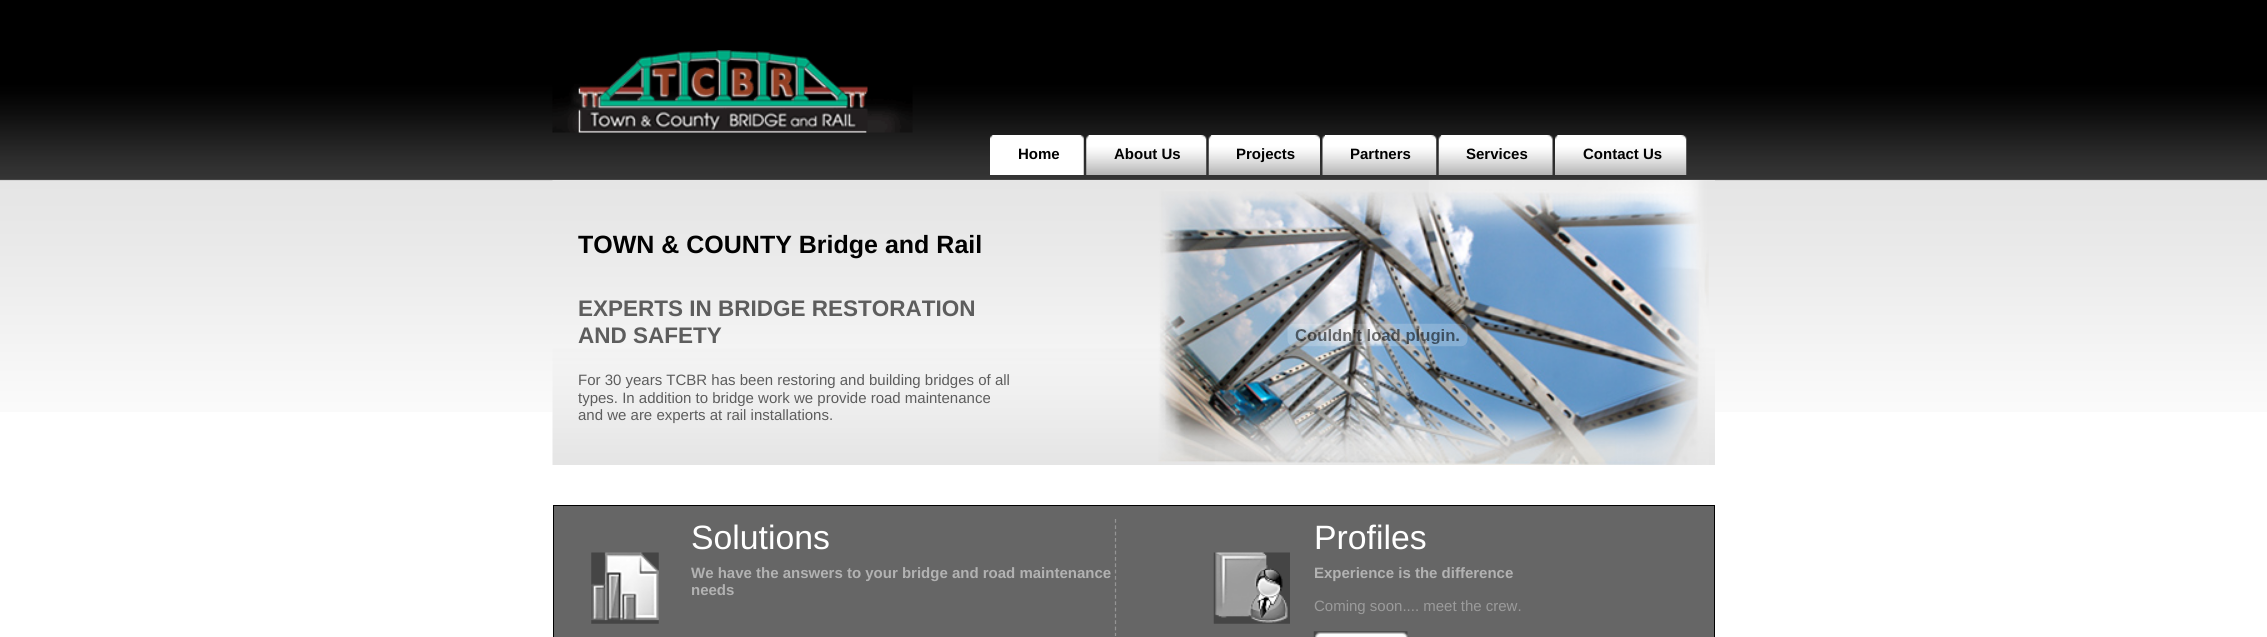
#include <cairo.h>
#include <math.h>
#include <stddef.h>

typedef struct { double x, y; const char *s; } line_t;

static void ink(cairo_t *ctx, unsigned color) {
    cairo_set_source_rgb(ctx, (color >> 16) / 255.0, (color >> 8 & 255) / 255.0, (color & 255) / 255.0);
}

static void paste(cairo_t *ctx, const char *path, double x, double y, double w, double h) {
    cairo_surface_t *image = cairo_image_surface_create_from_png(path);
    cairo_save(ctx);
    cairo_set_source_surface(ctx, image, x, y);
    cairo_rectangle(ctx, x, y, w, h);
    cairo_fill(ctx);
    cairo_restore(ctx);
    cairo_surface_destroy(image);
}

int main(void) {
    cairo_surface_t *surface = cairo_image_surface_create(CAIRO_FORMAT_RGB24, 2267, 637);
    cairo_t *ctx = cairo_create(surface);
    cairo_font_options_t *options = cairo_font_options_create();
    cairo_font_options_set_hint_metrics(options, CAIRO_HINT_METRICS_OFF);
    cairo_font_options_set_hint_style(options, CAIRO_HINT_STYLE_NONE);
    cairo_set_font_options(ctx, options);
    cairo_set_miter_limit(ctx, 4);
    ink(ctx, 0xFFFFFF);
    cairo_paint(ctx);
    paste(ctx, "media/1.png", 0, 0, 2267, 412);
    paste(ctx, "media/2.png", 552, 50, 361, 83);
    paste(ctx, "media/3.png", 990, 135, 3, 40);
    paste(ctx, "media/4.png", 992, 135, 92, 40);
    cairo_select_font_face(ctx, "Liberation Sans", CAIRO_FONT_SLANT_NORMAL, CAIRO_FONT_WEIGHT_BOLD);
    cairo_set_font_size(ctx, 15);
    ink(ctx, 0x010101);
    cairo_move_to(ctx, 1018, 159);
    cairo_show_text(ctx, "Home");
    paste(ctx, "media/5.png", 1086, 135, 3, 40);
    paste(ctx, "media/6.png", 1088, 135, 119, 40);
    cairo_move_to(ctx, 1114, 159);
    cairo_show_text(ctx, "About Us");
    paste(ctx, "media/7.png", 1208, 135, 4, 40);
    paste(ctx, "media/8.png", 1211, 135, 109, 40);
    cairo_move_to(ctx, 1236, 159);
    cairo_show_text(ctx, "Projects");
    paste(ctx, "media/9.png", 1322, 135, 3, 40);
    paste(ctx, "media/10.png", 1325, 135, 112, 40);
    cairo_move_to(ctx, 1350, 159);
    cairo_show_text(ctx, "Partners");
    paste(ctx, "media/7.png", 1438, 135, 4, 40);
    paste(ctx, "media/11.png", 1441, 135, 112, 40);
    cairo_move_to(ctx, 1466, 159);
    cairo_show_text(ctx, "Services");
    paste(ctx, "media/12.png", 1555, 135, 3, 40);
    paste(ctx, "media/13.png", 1557, 135, 130, 40);
    cairo_move_to(ctx, 1583, 159);
    cairo_show_text(ctx, "Contact Us");
    paste(ctx, "media/14.png", 552, 180, 1163, 285);
    paste(ctx, "media/15.png", 1158, 180, 551, 285);
    cairo_set_font_size(ctx, 25);
    cairo_move_to(ctx, 578, 253);
    cairo_show_text(ctx, "TOWN & COUNTY Bridge and Rail");
    cairo_set_font_size(ctx, 22.5);
    ink(ctx, 0x5D5D5D);
    cairo_move_to(ctx, 578, 316);
    cairo_show_text(ctx, "EXPERTS IN BRIDGE RESTORATION");
    cairo_move_to(ctx, 578, 343);
    cairo_show_text(ctx, "AND SAFETY");
    paste(ctx, "media/16.png", 1287, 323, 181, 24);
    cairo_select_font_face(ctx, "Liberation Sans", CAIRO_FONT_SLANT_NORMAL, CAIRO_FONT_WEIGHT_NORMAL);
    cairo_set_font_size(ctx, 15);
    {
        static const line_t items[] = {
            {578, 385, "For 30 years TCBR has been restoring and building bridges of all"},
            {578, 403, "types. In addition to bridge work we provide road maintenance"},
            {578, 420, "and we are experts at rail installations."},
        };
        for (size_t i = 0; i < sizeof items / sizeof *items; i++) {
            cairo_move_to(ctx, items[i].x, items[i].y);
            cairo_show_text(ctx, items[i].s);
        }
    }
    ink(ctx, 0x666666);
    cairo_rectangle(ctx, 553.5, 505.5, 1161, 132);
    cairo_fill_preserve(ctx);
    ink(ctx, 0x000000);
    cairo_set_line_width(ctx, 1);
    cairo_stroke(ctx);
    cairo_new_path(ctx);
    cairo_move_to(ctx, 1115.5, 519);
    cairo_line_to(ctx, 1115.5, 636);
    ink(ctx, 0x959595);
    cairo_set_line_width(ctx, 1.2);
    cairo_set_dash(ctx, (double[]){3.75, 2.58}, 2, 0);
    cairo_stroke(ctx);
    cairo_set_font_size(ctx, 33.75);
    ink(ctx, 0xFFFFFF);
    cairo_move_to(ctx, 691, 549);
    cairo_show_text(ctx, "Solutions");
    paste(ctx, "media/17.png", 591, 552, 68, 72);
    cairo_select_font_face(ctx, "Liberation Sans", CAIRO_FONT_SLANT_NORMAL, CAIRO_FONT_WEIGHT_BOLD);
    cairo_set_font_size(ctx, 15);
    ink(ctx, 0xB2B2B2);
    cairo_move_to(ctx, 691, 578);
    cairo_show_text(ctx, "We have the answers to your bridge and road maintenance");
    cairo_move_to(ctx, 691, 595);
    cairo_show_text(ctx, "needs");
    cairo_select_font_face(ctx, "Liberation Sans", CAIRO_FONT_SLANT_NORMAL, CAIRO_FONT_WEIGHT_NORMAL);
    cairo_set_font_size(ctx, 33.75);
    ink(ctx, 0xFFFFFF);
    cairo_move_to(ctx, 1314, 549);
    cairo_show_text(ctx, "Profiles");
    paste(ctx, "media/18.png", 1213, 552, 77, 72);
    cairo_select_font_face(ctx, "Liberation Sans", CAIRO_FONT_SLANT_NORMAL, CAIRO_FONT_WEIGHT_BOLD);
    cairo_set_font_size(ctx, 15);
    ink(ctx, 0xB2B2B2);
    cairo_move_to(ctx, 1314, 578);
    cairo_show_text(ctx, "Experience is the difference");
    cairo_select_font_face(ctx, "Liberation Sans", CAIRO_FONT_SLANT_NORMAL, CAIRO_FONT_WEIGHT_NORMAL);
    ink(ctx, 0x9B9B9B);
    cairo_move_to(ctx, 1314, 611);
    cairo_show_text(ctx, "Coming soon.... meet the crew.");
    paste(ctx, "media/19.png", 1313, 631, 95, 6);
    cairo_surface_write_to_png(surface, "image.png");
    cairo_font_options_destroy(options);
    cairo_destroy(ctx);
    cairo_surface_destroy(surface);
    return 0;
}
